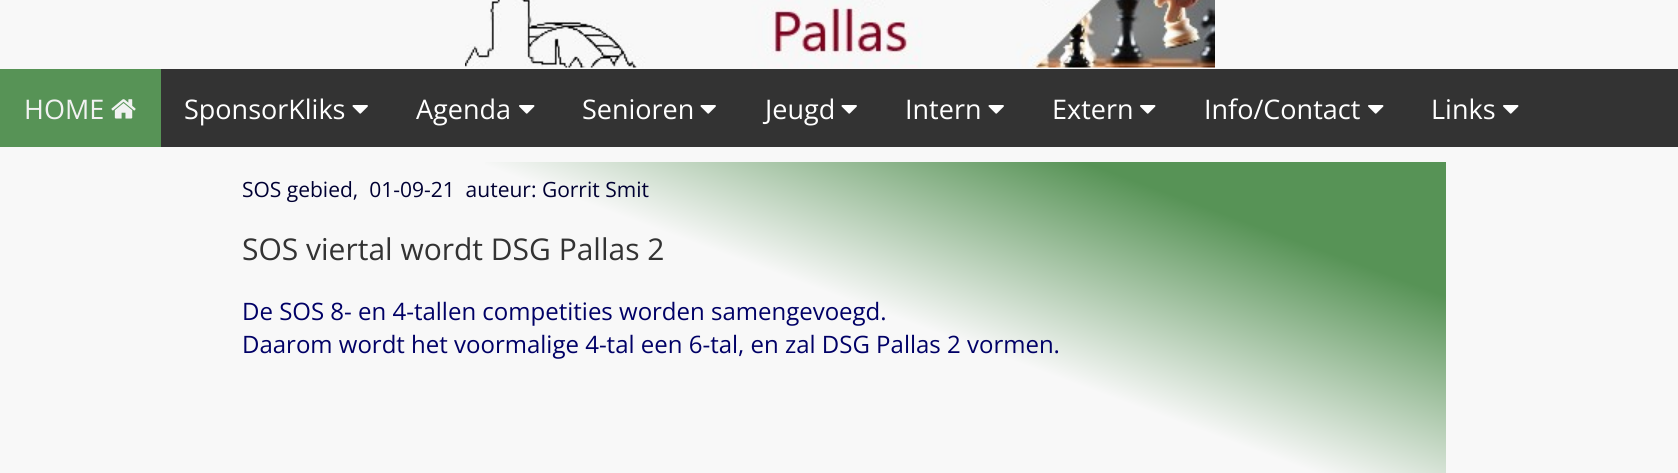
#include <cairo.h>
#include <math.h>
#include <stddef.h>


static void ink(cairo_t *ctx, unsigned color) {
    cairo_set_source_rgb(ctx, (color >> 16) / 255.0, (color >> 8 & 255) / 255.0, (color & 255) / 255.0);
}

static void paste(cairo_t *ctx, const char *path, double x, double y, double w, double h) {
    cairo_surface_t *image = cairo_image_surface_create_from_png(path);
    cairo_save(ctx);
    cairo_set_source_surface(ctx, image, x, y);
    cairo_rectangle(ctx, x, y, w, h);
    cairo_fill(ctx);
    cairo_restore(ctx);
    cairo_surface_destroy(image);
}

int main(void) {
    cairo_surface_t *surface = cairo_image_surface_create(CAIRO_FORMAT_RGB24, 1678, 473);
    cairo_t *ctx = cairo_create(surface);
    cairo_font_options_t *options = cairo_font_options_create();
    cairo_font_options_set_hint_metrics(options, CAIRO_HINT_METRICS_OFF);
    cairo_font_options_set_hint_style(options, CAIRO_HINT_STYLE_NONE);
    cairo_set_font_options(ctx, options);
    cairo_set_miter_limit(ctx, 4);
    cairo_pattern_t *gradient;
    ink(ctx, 0xF8F8F8);
    cairo_paint(ctx);
    paste(ctx, "media/1.png", 465, 0, 750, 68);
    ink(ctx, 0x333333);
    cairo_rectangle(ctx, 161, 69, 1517, 78);
    cairo_fill(ctx);
    ink(ctx, 0x579356);
    cairo_rectangle(ctx, 0, 69, 161, 78);
    cairo_fill(ctx);
    cairo_select_font_face(ctx, "Open Sans", CAIRO_FONT_SLANT_NORMAL, CAIRO_FONT_WEIGHT_NORMAL);
    cairo_set_font_size(ctx, 27);
    ink(ctx, 0xF2F2F2);
    cairo_move_to(ctx, 24, 119);
    cairo_show_text(ctx, "HOME");
    paste(ctx, "media/2.png", 111, 99, 25, 20);
    ink(ctx, 0xFFFFFF);
    cairo_move_to(ctx, 184, 119);
    cairo_show_text(ctx, "SponsorKliks");
    paste(ctx, "media/3.png", 352, 105, 16, 9);
    cairo_move_to(ctx, 416, 119);
    cairo_show_text(ctx, "Agenda");
    paste(ctx, "media/4.png", 519, 105, 16, 9);
    cairo_move_to(ctx, 582, 119);
    cairo_show_text(ctx, "Senioren");
    paste(ctx, "media/3.png", 700, 105, 16, 9);
    cairo_move_to(ctx, 765, 119);
    cairo_show_text(ctx, "Jeugd");
    paste(ctx, "media/3.png", 841, 105, 16, 9);
    cairo_move_to(ctx, 905, 119);
    cairo_show_text(ctx, "Intern");
    paste(ctx, "media/3.png", 988, 105, 16, 9);
    cairo_move_to(ctx, 1052, 119);
    cairo_show_text(ctx, "Extern");
    paste(ctx, "media/4.png", 1140, 105, 16, 9);
    cairo_move_to(ctx, 1204, 119);
    cairo_show_text(ctx, "Info/Contact");
    paste(ctx, "media/4.png", 1368, 105, 16, 9);
    cairo_move_to(ctx, 1431, 119);
    cairo_show_text(ctx, "Links");
    paste(ctx, "media/4.png", 1503, 105, 16, 9);
    gradient = cairo_pattern_create_linear(986, -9, 693, 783);
    cairo_pattern_add_color_stop_rgba(gradient, 0.15, 0.341, 0.576, 0.337, 1);
    cairo_pattern_add_color_stop_rgba(gradient, 0.4, 0.973, 0.973, 0.973, 1);
    cairo_set_source(ctx, gradient);
    cairo_pattern_destroy(gradient);
    cairo_rectangle(ctx, 485, 162, 961, 311);
    cairo_fill(ctx);
    cairo_set_font_size(ctx, 21);
    ink(ctx, 0x000033);
    cairo_move_to(ctx, 242, 197);
    cairo_show_text(ctx, "SOS gebied,  01-09-21  auteur: Gorrit Smit");
    cairo_set_font_size(ctx, 30);
    ink(ctx, 0x333333);
    cairo_move_to(ctx, 242, 260);
    cairo_show_text(ctx, "SOS viertal wordt DSG Pallas 2");
    cairo_set_font_size(ctx, 24);
    ink(ctx, 0x000066);
    cairo_move_to(ctx, 242, 320);
    cairo_show_text(ctx, "De SOS 8- en 4-tallen competities worden samengevoegd.");
    cairo_move_to(ctx, 242, 353);
    cairo_show_text(ctx, "Daarom wordt het voormalige 4-tal een 6-tal, en zal DSG Pallas 2 vormen.");
    cairo_surface_write_to_png(surface, "image.png");
    cairo_font_options_destroy(options);
    cairo_destroy(ctx);
    cairo_surface_destroy(surface);
    return 0;
}
